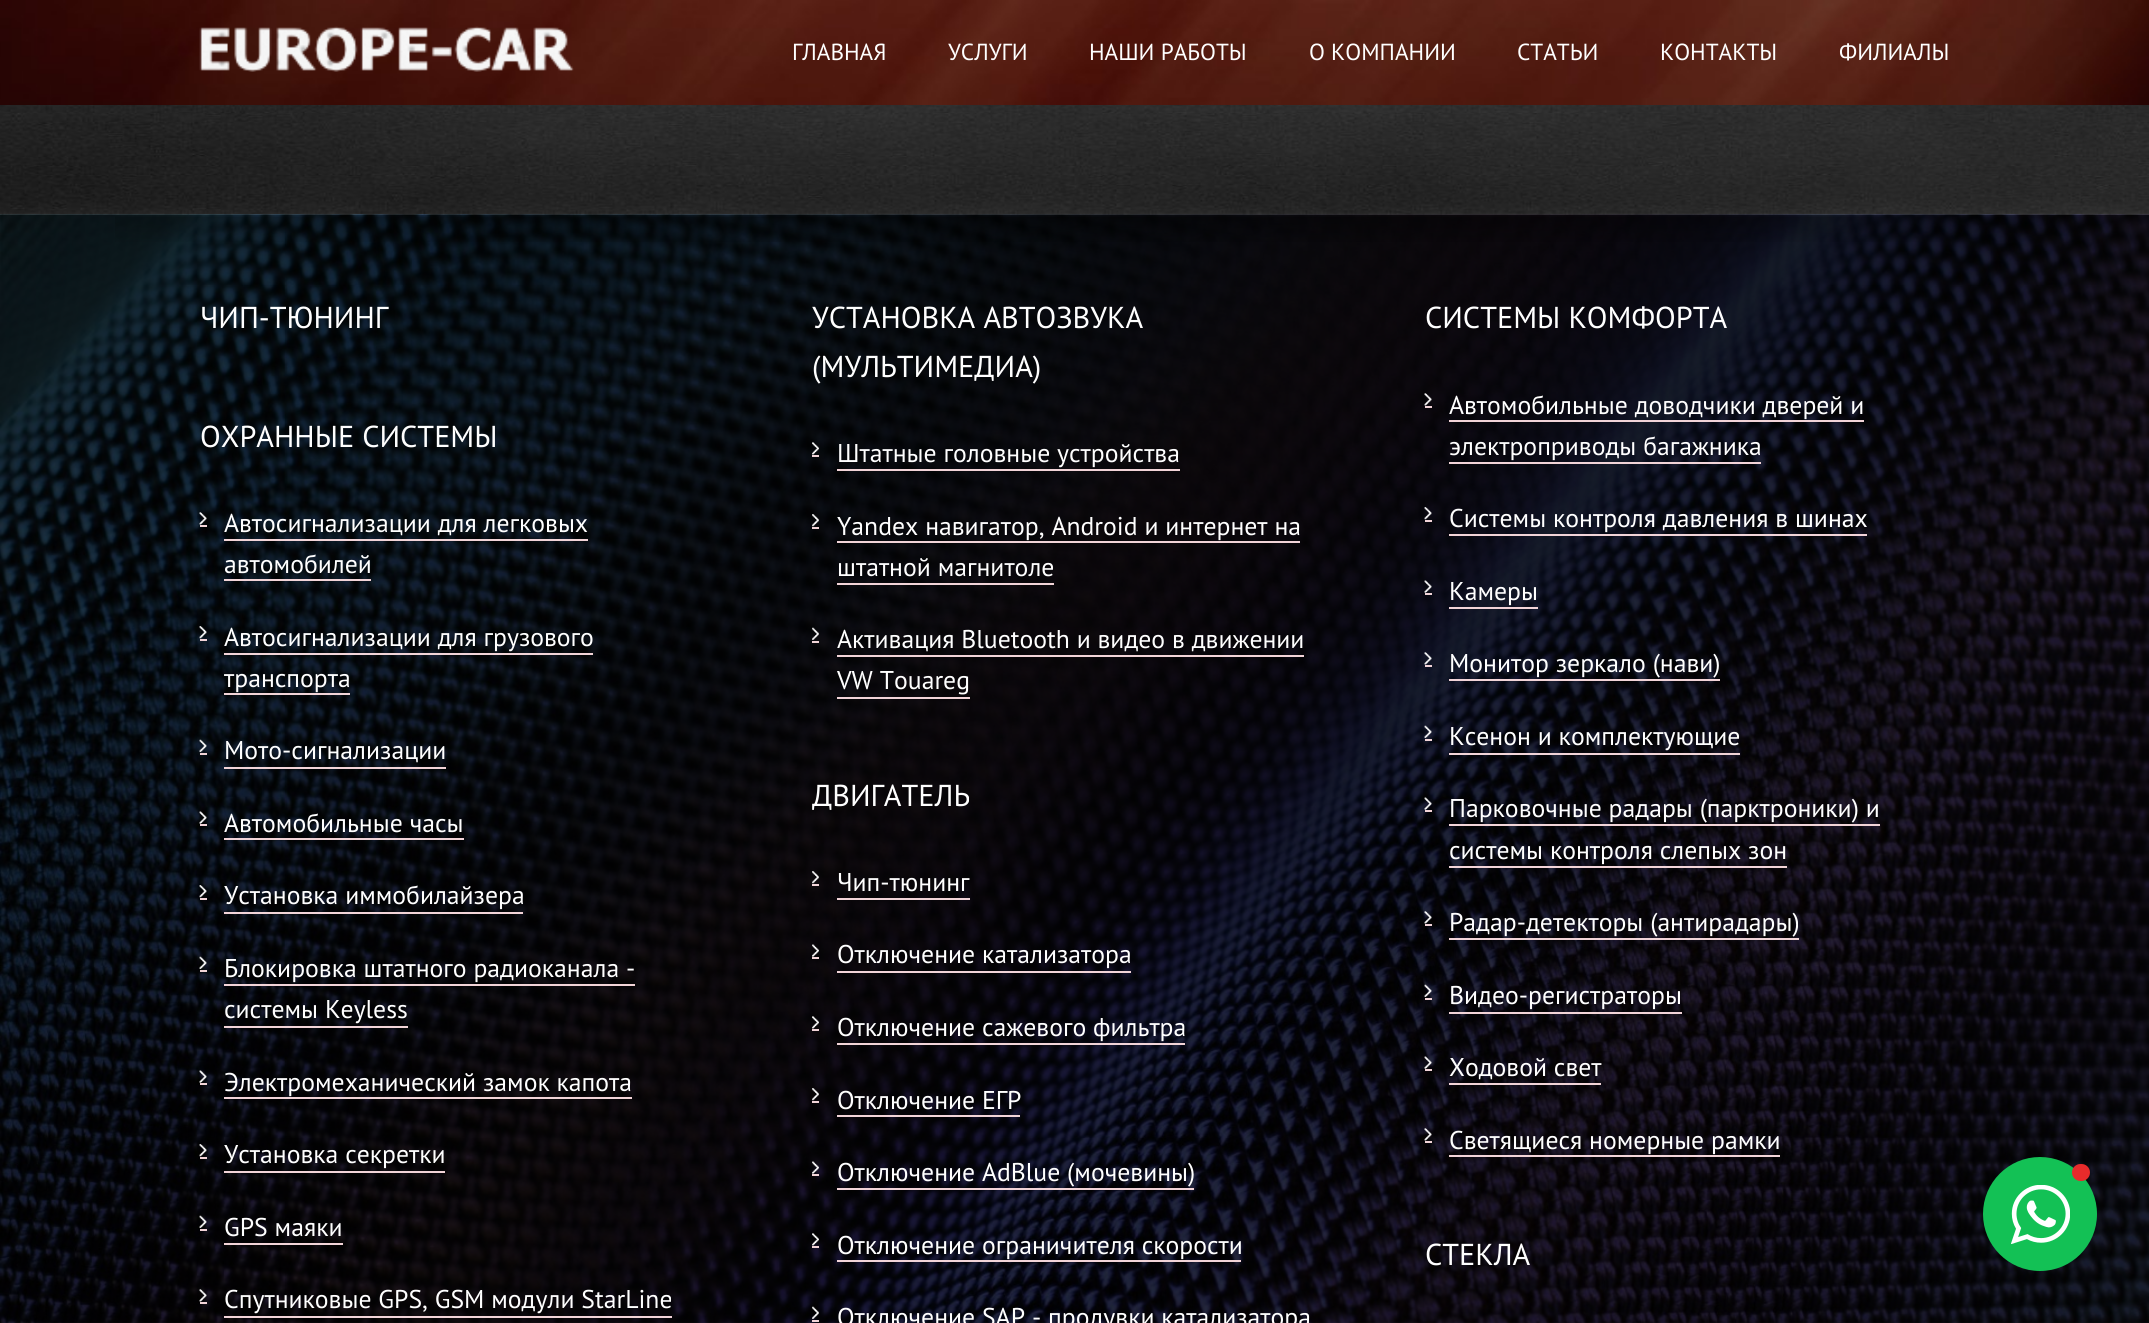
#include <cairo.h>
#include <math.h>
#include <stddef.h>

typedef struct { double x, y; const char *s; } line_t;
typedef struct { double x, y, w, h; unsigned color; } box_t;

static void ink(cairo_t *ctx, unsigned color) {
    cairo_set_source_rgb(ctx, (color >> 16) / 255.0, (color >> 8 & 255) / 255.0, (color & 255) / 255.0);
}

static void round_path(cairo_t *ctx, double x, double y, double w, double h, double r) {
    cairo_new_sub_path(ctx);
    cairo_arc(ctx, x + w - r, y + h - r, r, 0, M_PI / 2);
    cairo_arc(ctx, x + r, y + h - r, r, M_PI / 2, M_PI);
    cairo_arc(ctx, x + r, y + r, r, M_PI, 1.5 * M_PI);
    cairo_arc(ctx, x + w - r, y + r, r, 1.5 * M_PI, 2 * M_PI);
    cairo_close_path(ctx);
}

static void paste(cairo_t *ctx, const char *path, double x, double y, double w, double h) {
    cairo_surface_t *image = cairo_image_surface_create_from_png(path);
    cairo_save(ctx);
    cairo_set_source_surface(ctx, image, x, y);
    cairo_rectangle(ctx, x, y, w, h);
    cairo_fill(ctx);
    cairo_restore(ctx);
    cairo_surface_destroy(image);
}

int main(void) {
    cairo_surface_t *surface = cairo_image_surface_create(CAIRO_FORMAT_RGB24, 2149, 1323);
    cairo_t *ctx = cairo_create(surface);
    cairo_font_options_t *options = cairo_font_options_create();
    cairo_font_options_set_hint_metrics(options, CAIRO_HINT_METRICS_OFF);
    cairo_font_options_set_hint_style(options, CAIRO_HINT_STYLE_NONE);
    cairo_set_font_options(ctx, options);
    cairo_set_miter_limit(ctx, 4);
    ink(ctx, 0xFFFFFF);
    cairo_paint(ctx);
    paste(ctx, "media/1.png", 0, 1322, 2149, 1);
    paste(ctx, "media/2.png", 0, 0, 2149, 105);
    paste(ctx, "media/3.png", 199, 26, 375, 46);
    cairo_select_font_face(ctx, "PT Sans", CAIRO_FONT_SLANT_NORMAL, CAIRO_FONT_WEIGHT_NORMAL);
    cairo_set_font_size(ctx, 23.25);
    ink(ctx, 0xFFFFFF);
    {
        static const line_t items[] = {
            {792, 60, "ГЛАВНАЯ"},
            {948, 60, "УСЛУГИ"},
            {1089, 60, "НАШИ РАБОТЫ"},
            {1309, 60, "О КОМПАНИИ"},
            {1517, 60, "СТАТЬИ"},
            {1660, 60, "КОНТАКТЫ"},
            {1839, 60, "ФИЛИАЛЫ"},
        };
        for (size_t i = 0; i < sizeof items / sizeof *items; i++) {
            cairo_move_to(ctx, items[i].x, items[i].y);
            cairo_show_text(ctx, items[i].s);
        }
    }
    paste(ctx, "media/6.png", 0, 214, 2149, 1109);
    paste(ctx, "media/4.png", 0, 105, 2149, 110);
    cairo_set_source_rgba(ctx, 0, 0, 0, 0.75);
    cairo_rectangle(ctx, 0, 215, 2149, 1108);
    cairo_fill(ctx);
    paste(ctx, "media/5.png", 115, 216, 1995, 26);
    cairo_set_font_size(ctx, 30.25);
    ink(ctx, 0xFFFFFF);
    cairo_move_to(ctx, 200, 328);
    cairo_show_text(ctx, "ЧИП-ТЮНИНГ");
    cairo_move_to(ctx, 200, 447);
    cairo_show_text(ctx, "ОХРАННЫЕ СИСТЕМЫ");
    {
        static const box_t items[] = {
            {200, 525, 7, 2, 0xF2D4D8},
            {224, 539, 364, 2, 0xF2D4D8},
            {224, 579, 147, 2, 0xF2D4D8},
        };
        for (size_t i = 0; i < sizeof items / sizeof *items; i++) {
            ink(ctx, items[i].color);
            cairo_rectangle(ctx, items[i].x, items[i].y, items[i].w, items[i].h);
            cairo_fill(ctx);
        }
    }
    paste(ctx, "media/7.png", 199, 512, 8, 13);
    cairo_set_font_size(ctx, 25.7);
    ink(ctx, 0xFFFFFF);
    cairo_move_to(ctx, 224, 532);
    cairo_show_text(ctx, "Автосигнализации для легковых");
    cairo_move_to(ctx, 224, 573);
    cairo_show_text(ctx, "автомобилей");
    {
        static const box_t items[] = {
            {200, 639, 7, 2, 0xF2D4D8},
            {224, 653, 369, 2, 0xF2D4D8},
            {224, 693, 126, 2, 0xF2D4D8},
        };
        for (size_t i = 0; i < sizeof items / sizeof *items; i++) {
            ink(ctx, items[i].color);
            cairo_rectangle(ctx, items[i].x, items[i].y, items[i].w, items[i].h);
            cairo_fill(ctx);
        }
    }
    paste(ctx, "media/8.png", 199, 626, 8, 13);
    ink(ctx, 0xFFFFFF);
    cairo_move_to(ctx, 224, 646);
    cairo_show_text(ctx, "Автосигнализации для грузового");
    cairo_move_to(ctx, 224, 687);
    cairo_show_text(ctx, "транспорта");
    ink(ctx, 0xF2D4D8);
    cairo_rectangle(ctx, 200, 753, 7, 2);
    cairo_fill(ctx);
    cairo_rectangle(ctx, 224, 767, 222, 2);
    cairo_fill(ctx);
    paste(ctx, "media/9.png", 199, 739, 8, 13);
    ink(ctx, 0xFFFFFF);
    cairo_move_to(ctx, 224, 759);
    cairo_show_text(ctx, "Мото-сигнализации");
    ink(ctx, 0xF2D4D8);
    cairo_rectangle(ctx, 200, 824, 7, 2);
    cairo_fill(ctx);
    cairo_rectangle(ctx, 224, 838, 240, 2);
    cairo_fill(ctx);
    paste(ctx, "media/10.png", 199, 811, 8, 13);
    ink(ctx, 0xFFFFFF);
    cairo_move_to(ctx, 224, 832);
    cairo_show_text(ctx, "Автомобильные часы");
    ink(ctx, 0xF2D4D8);
    cairo_rectangle(ctx, 200, 898, 7, 2);
    cairo_fill(ctx);
    cairo_rectangle(ctx, 224, 912, 299, 2);
    cairo_fill(ctx);
    paste(ctx, "media/11.png", 199, 885, 8, 13);
    ink(ctx, 0xFFFFFF);
    cairo_move_to(ctx, 224, 904);
    cairo_show_text(ctx, "Установка иммобилайзера");
    {
        static const box_t items[] = {
            {200, 970, 7, 2, 0xF2D4D8},
            {224, 984, 411, 2, 0xF2D4D8},
            {224, 1026, 184, 2, 0xF2D4D8},
        };
        for (size_t i = 0; i < sizeof items / sizeof *items; i++) {
            ink(ctx, items[i].color);
            cairo_rectangle(ctx, items[i].x, items[i].y, items[i].w, items[i].h);
            cairo_fill(ctx);
        }
    }
    paste(ctx, "media/12.png", 199, 956, 8, 13);
    ink(ctx, 0xFFFFFF);
    cairo_move_to(ctx, 224, 977);
    cairo_show_text(ctx, "Блокировка штатного радиоканала -");
    cairo_move_to(ctx, 224, 1018);
    cairo_show_text(ctx, "системы Keyless");
    ink(ctx, 0xF2D4D8);
    cairo_rectangle(ctx, 200, 1083, 7, 2);
    cairo_fill(ctx);
    cairo_rectangle(ctx, 224, 1097, 408, 2);
    cairo_fill(ctx);
    paste(ctx, "media/13.png", 199, 1070, 8, 13);
    ink(ctx, 0xFFFFFF);
    cairo_move_to(ctx, 224, 1091);
    cairo_show_text(ctx, "Электромеханический замок капота");
    ink(ctx, 0xF2D4D8);
    cairo_rectangle(ctx, 200, 1157, 7, 2);
    cairo_fill(ctx);
    cairo_rectangle(ctx, 224, 1171, 221, 2);
    cairo_fill(ctx);
    paste(ctx, "media/14.png", 199, 1144, 8, 13);
    ink(ctx, 0xFFFFFF);
    cairo_move_to(ctx, 224, 1163);
    cairo_show_text(ctx, "Установка секретки");
    ink(ctx, 0xF2D4D8);
    cairo_rectangle(ctx, 200, 1229, 7, 2);
    cairo_fill(ctx);
    cairo_rectangle(ctx, 224, 1243, 119, 2);
    cairo_fill(ctx);
    paste(ctx, "media/15.png", 199, 1215, 8, 13);
    ink(ctx, 0xFFFFFF);
    cairo_move_to(ctx, 224, 1236);
    cairo_show_text(ctx, "GPS маяки");
    ink(ctx, 0xF2D4D8);
    cairo_rectangle(ctx, 200, 1302, 7, 2);
    cairo_fill(ctx);
    cairo_rectangle(ctx, 224, 1316, 448, 2);
    cairo_fill(ctx);
    paste(ctx, "media/16.png", 199, 1289, 8, 13);
    ink(ctx, 0xFFFFFF);
    cairo_move_to(ctx, 224, 1308);
    cairo_show_text(ctx, "Спутниковые GPS, GSM модули StarLine");
    cairo_set_font_size(ctx, 30.25);
    cairo_move_to(ctx, 812, 328);
    cairo_show_text(ctx, "УСТАНОВКА АВТОЗВУКА");
    cairo_move_to(ctx, 812, 377);
    cairo_show_text(ctx, "(МУЛЬТИМЕДИА)");
    ink(ctx, 0xF2D4D8);
    cairo_rectangle(ctx, 812, 455, 7, 2);
    cairo_fill(ctx);
    cairo_rectangle(ctx, 837, 469, 343, 2);
    cairo_fill(ctx);
    paste(ctx, "media/17.png", 812, 442, 7, 13);
    cairo_set_font_size(ctx, 25.7);
    ink(ctx, 0xFFFFFF);
    cairo_move_to(ctx, 837, 462);
    cairo_show_text(ctx, "Штатные головные устройства");
    {
        static const box_t items[] = {
            {812, 527, 7, 2, 0xF2D4D8},
            {837, 541, 463, 2, 0xF2D4D8},
            {837, 583, 217, 2, 0xF2D4D8},
        };
        for (size_t i = 0; i < sizeof items / sizeof *items; i++) {
            ink(ctx, items[i].color);
            cairo_rectangle(ctx, items[i].x, items[i].y, items[i].w, items[i].h);
            cairo_fill(ctx);
        }
    }
    paste(ctx, "media/18.png", 812, 514, 7, 13);
    ink(ctx, 0xFFFFFF);
    cairo_move_to(ctx, 837, 535);
    cairo_show_text(ctx, "Yandex навигатор, Android и интернет на");
    cairo_move_to(ctx, 837, 576);
    cairo_show_text(ctx, "штатной магнитоле");
    {
        static const box_t items[] = {
            {812, 641, 7, 2, 0xF2D4D8},
            {837, 655, 467, 2, 0xF2D4D8},
            {837, 697, 133, 2, 0xF2D4D8},
        };
        for (size_t i = 0; i < sizeof items / sizeof *items; i++) {
            ink(ctx, items[i].color);
            cairo_rectangle(ctx, items[i].x, items[i].y, items[i].w, items[i].h);
            cairo_fill(ctx);
        }
    }
    paste(ctx, "media/19.png", 812, 627, 7, 13);
    ink(ctx, 0xFFFFFF);
    cairo_move_to(ctx, 837, 648);
    cairo_show_text(ctx, "Активация Bluetooth и видео в движении");
    cairo_move_to(ctx, 837, 689);
    cairo_show_text(ctx, "VW Touareg");
    cairo_set_font_size(ctx, 30.25);
    cairo_move_to(ctx, 812, 806);
    cairo_show_text(ctx, "ДВИГАТЕЛЬ");
    ink(ctx, 0xF2D4D8);
    cairo_rectangle(ctx, 812, 884, 7, 2);
    cairo_fill(ctx);
    cairo_rectangle(ctx, 837, 898, 133, 2);
    cairo_fill(ctx);
    paste(ctx, "media/20.png", 812, 871, 7, 13);
    cairo_set_font_size(ctx, 25.7);
    ink(ctx, 0xFFFFFF);
    cairo_move_to(ctx, 837, 891);
    cairo_show_text(ctx, "Чип-тюнинг");
    ink(ctx, 0xF2D4D8);
    cairo_rectangle(ctx, 812, 957, 7, 2);
    cairo_fill(ctx);
    cairo_rectangle(ctx, 837, 971, 294, 2);
    cairo_fill(ctx);
    paste(ctx, "media/21.png", 812, 944, 7, 13);
    ink(ctx, 0xFFFFFF);
    cairo_move_to(ctx, 837, 963);
    cairo_show_text(ctx, "Отключение катализатора");
    ink(ctx, 0xF2D4D8);
    cairo_rectangle(ctx, 812, 1029, 7, 2);
    cairo_fill(ctx);
    cairo_rectangle(ctx, 837, 1043, 348, 2);
    cairo_fill(ctx);
    paste(ctx, "media/22.png", 812, 1016, 7, 13);
    ink(ctx, 0xFFFFFF);
    cairo_move_to(ctx, 837, 1036);
    cairo_show_text(ctx, "Отключение сажевого фильтра");
    ink(ctx, 0xF2D4D8);
    cairo_rectangle(ctx, 812, 1101, 7, 2);
    cairo_fill(ctx);
    cairo_rectangle(ctx, 837, 1115, 183, 2);
    cairo_fill(ctx);
    paste(ctx, "media/23.png", 812, 1088, 7, 13);
    ink(ctx, 0xFFFFFF);
    cairo_move_to(ctx, 837, 1109);
    cairo_show_text(ctx, "Отключение ЕГР");
    ink(ctx, 0xF2D4D8);
    cairo_rectangle(ctx, 812, 1174, 7, 2);
    cairo_fill(ctx);
    cairo_rectangle(ctx, 837, 1188, 357, 2);
    cairo_fill(ctx);
    paste(ctx, "media/24.png", 812, 1161, 7, 13);
    ink(ctx, 0xFFFFFF);
    cairo_move_to(ctx, 837, 1181);
    cairo_show_text(ctx, "Отключение AdBlue (мочевины)");
    ink(ctx, 0xF2D4D8);
    cairo_rectangle(ctx, 812, 1246, 7, 2);
    cairo_fill(ctx);
    cairo_rectangle(ctx, 837, 1260, 404, 2);
    cairo_fill(ctx);
    paste(ctx, "media/25.png", 812, 1233, 7, 13);
    ink(ctx, 0xFFFFFF);
    cairo_move_to(ctx, 837, 1254);
    cairo_show_text(ctx, "Отключение ограничителя скорости");
    ink(ctx, 0xF2D4D8);
    cairo_rectangle(ctx, 812, 1320, 7, 2);
    cairo_fill(ctx);
    paste(ctx, "media/26.png", 812, 1306, 7, 13);
    ink(ctx, 0xFFFFFF);
    cairo_move_to(ctx, 837, 1326);
    cairo_show_text(ctx, "Отключение SAP - продувки катализатора");
    cairo_set_font_size(ctx, 30.25);
    cairo_move_to(ctx, 1425, 328);
    cairo_show_text(ctx, "СИСТЕМЫ КОМФОРТА");
    {
        static const box_t items[] = {
            {1425, 406, 7, 2, 0xF2D4D8},
            {1449, 420, 415, 2, 0xF2D4D8},
            {1449, 462, 312, 2, 0xF2D4D8},
        };
        for (size_t i = 0; i < sizeof items / sizeof *items; i++) {
            ink(ctx, items[i].color);
            cairo_rectangle(ctx, items[i].x, items[i].y, items[i].w, items[i].h);
            cairo_fill(ctx);
        }
    }
    paste(ctx, "media/27.png", 1424, 393, 8, 13);
    cairo_set_font_size(ctx, 25.7);
    ink(ctx, 0xFFFFFF);
    cairo_move_to(ctx, 1449, 414);
    cairo_show_text(ctx, "Автомобильные доводчики дверей и");
    cairo_move_to(ctx, 1449, 455);
    cairo_show_text(ctx, "электроприводы багажника");
    ink(ctx, 0xF2D4D8);
    cairo_rectangle(ctx, 1425, 520, 7, 2);
    cairo_fill(ctx);
    cairo_rectangle(ctx, 1449, 534, 418, 2);
    cairo_fill(ctx);
    paste(ctx, "media/28.png", 1424, 507, 8, 13);
    ink(ctx, 0xFFFFFF);
    cairo_move_to(ctx, 1449, 527);
    cairo_show_text(ctx, "Системы контроля давления в шинах");
    ink(ctx, 0xF2D4D8);
    cairo_rectangle(ctx, 1425, 593, 7, 2);
    cairo_fill(ctx);
    cairo_rectangle(ctx, 1449, 607, 89, 2);
    cairo_fill(ctx);
    paste(ctx, "media/29.png", 1424, 580, 8, 13);
    ink(ctx, 0xFFFFFF);
    cairo_move_to(ctx, 1449, 600);
    cairo_show_text(ctx, "Камеры");
    ink(ctx, 0xF2D4D8);
    cairo_rectangle(ctx, 1425, 665, 7, 2);
    cairo_fill(ctx);
    cairo_rectangle(ctx, 1449, 679, 271, 2);
    cairo_fill(ctx);
    paste(ctx, "media/30.png", 1424, 652, 8, 13);
    ink(ctx, 0xFFFFFF);
    cairo_move_to(ctx, 1449, 672);
    cairo_show_text(ctx, "Монитор зеркало (нави)");
    ink(ctx, 0xF2D4D8);
    cairo_rectangle(ctx, 1425, 739, 7, 2);
    cairo_fill(ctx);
    cairo_rectangle(ctx, 1449, 753, 291, 2);
    cairo_fill(ctx);
    paste(ctx, "media/31.png", 1424, 725, 8, 13);
    ink(ctx, 0xFFFFFF);
    cairo_move_to(ctx, 1449, 745);
    cairo_show_text(ctx, "Ксенон и комплектующие");
    {
        static const box_t items[] = {
            {1425, 810, 7, 2, 0xF2D4D8},
            {1449, 824, 431, 2, 0xF2D4D8},
            {1449, 866, 338, 2, 0xF2D4D8},
        };
        for (size_t i = 0; i < sizeof items / sizeof *items; i++) {
            ink(ctx, items[i].color);
            cairo_rectangle(ctx, items[i].x, items[i].y, items[i].w, items[i].h);
            cairo_fill(ctx);
        }
    }
    paste(ctx, "media/32.png", 1424, 797, 8, 13);
    ink(ctx, 0xFFFFFF);
    cairo_move_to(ctx, 1449, 817);
    cairo_show_text(ctx, "Парковочные радары (парктроники) и");
    cairo_move_to(ctx, 1449, 859);
    cairo_show_text(ctx, "системы контроля слепых зон");
    ink(ctx, 0xF2D4D8);
    cairo_rectangle(ctx, 1425, 924, 7, 2);
    cairo_fill(ctx);
    cairo_rectangle(ctx, 1449, 938, 350, 2);
    cairo_fill(ctx);
    paste(ctx, "media/33.png", 1424, 911, 8, 13);
    ink(ctx, 0xFFFFFF);
    cairo_move_to(ctx, 1449, 931);
    cairo_show_text(ctx, "Радар-детекторы (антирадары)");
    ink(ctx, 0xF2D4D8);
    cairo_rectangle(ctx, 1425, 998, 7, 2);
    cairo_fill(ctx);
    cairo_rectangle(ctx, 1449, 1012, 233, 2);
    cairo_fill(ctx);
    paste(ctx, "media/34.png", 1424, 984, 8, 13);
    ink(ctx, 0xFFFFFF);
    cairo_move_to(ctx, 1449, 1004);
    cairo_show_text(ctx, "Видео-регистраторы");
    ink(ctx, 0xF2D4D8);
    cairo_rectangle(ctx, 1425, 1069, 7, 2);
    cairo_fill(ctx);
    cairo_rectangle(ctx, 1449, 1083, 152, 2);
    cairo_fill(ctx);
    paste(ctx, "media/35.png", 1424, 1056, 8, 13);
    ink(ctx, 0xFFFFFF);
    cairo_move_to(ctx, 1449, 1076);
    cairo_show_text(ctx, "Ходовой свет");
    ink(ctx, 0xF2D4D8);
    cairo_rectangle(ctx, 1425, 1141, 7, 2);
    cairo_fill(ctx);
    cairo_rectangle(ctx, 1449, 1155, 331, 2);
    cairo_fill(ctx);
    paste(ctx, "media/36.png", 1424, 1128, 8, 13);
    ink(ctx, 0xFFFFFF);
    cairo_move_to(ctx, 1449, 1149);
    cairo_show_text(ctx, "Светящиеся номерные рамки");
    cairo_set_font_size(ctx, 30.25);
    cairo_move_to(ctx, 1425, 1265);
    cairo_show_text(ctx, "СТЕКЛА");
    ink(ctx, 0x13C155);
    cairo_new_path(ctx);
    cairo_arc(ctx, 2040, 1214, 57, 0, 2 * M_PI);
    cairo_fill(ctx);
    ink(ctx, 0xE82B2B);
    round_path(ctx, 2072, 1164, 18, 17, 8.5);
    cairo_fill(ctx);
    paste(ctx, "media/37.png", 2011, 1185, 59, 59);
    cairo_surface_write_to_png(surface, "image.png");
    cairo_font_options_destroy(options);
    cairo_destroy(ctx);
    cairo_surface_destroy(surface);
    return 0;
}
